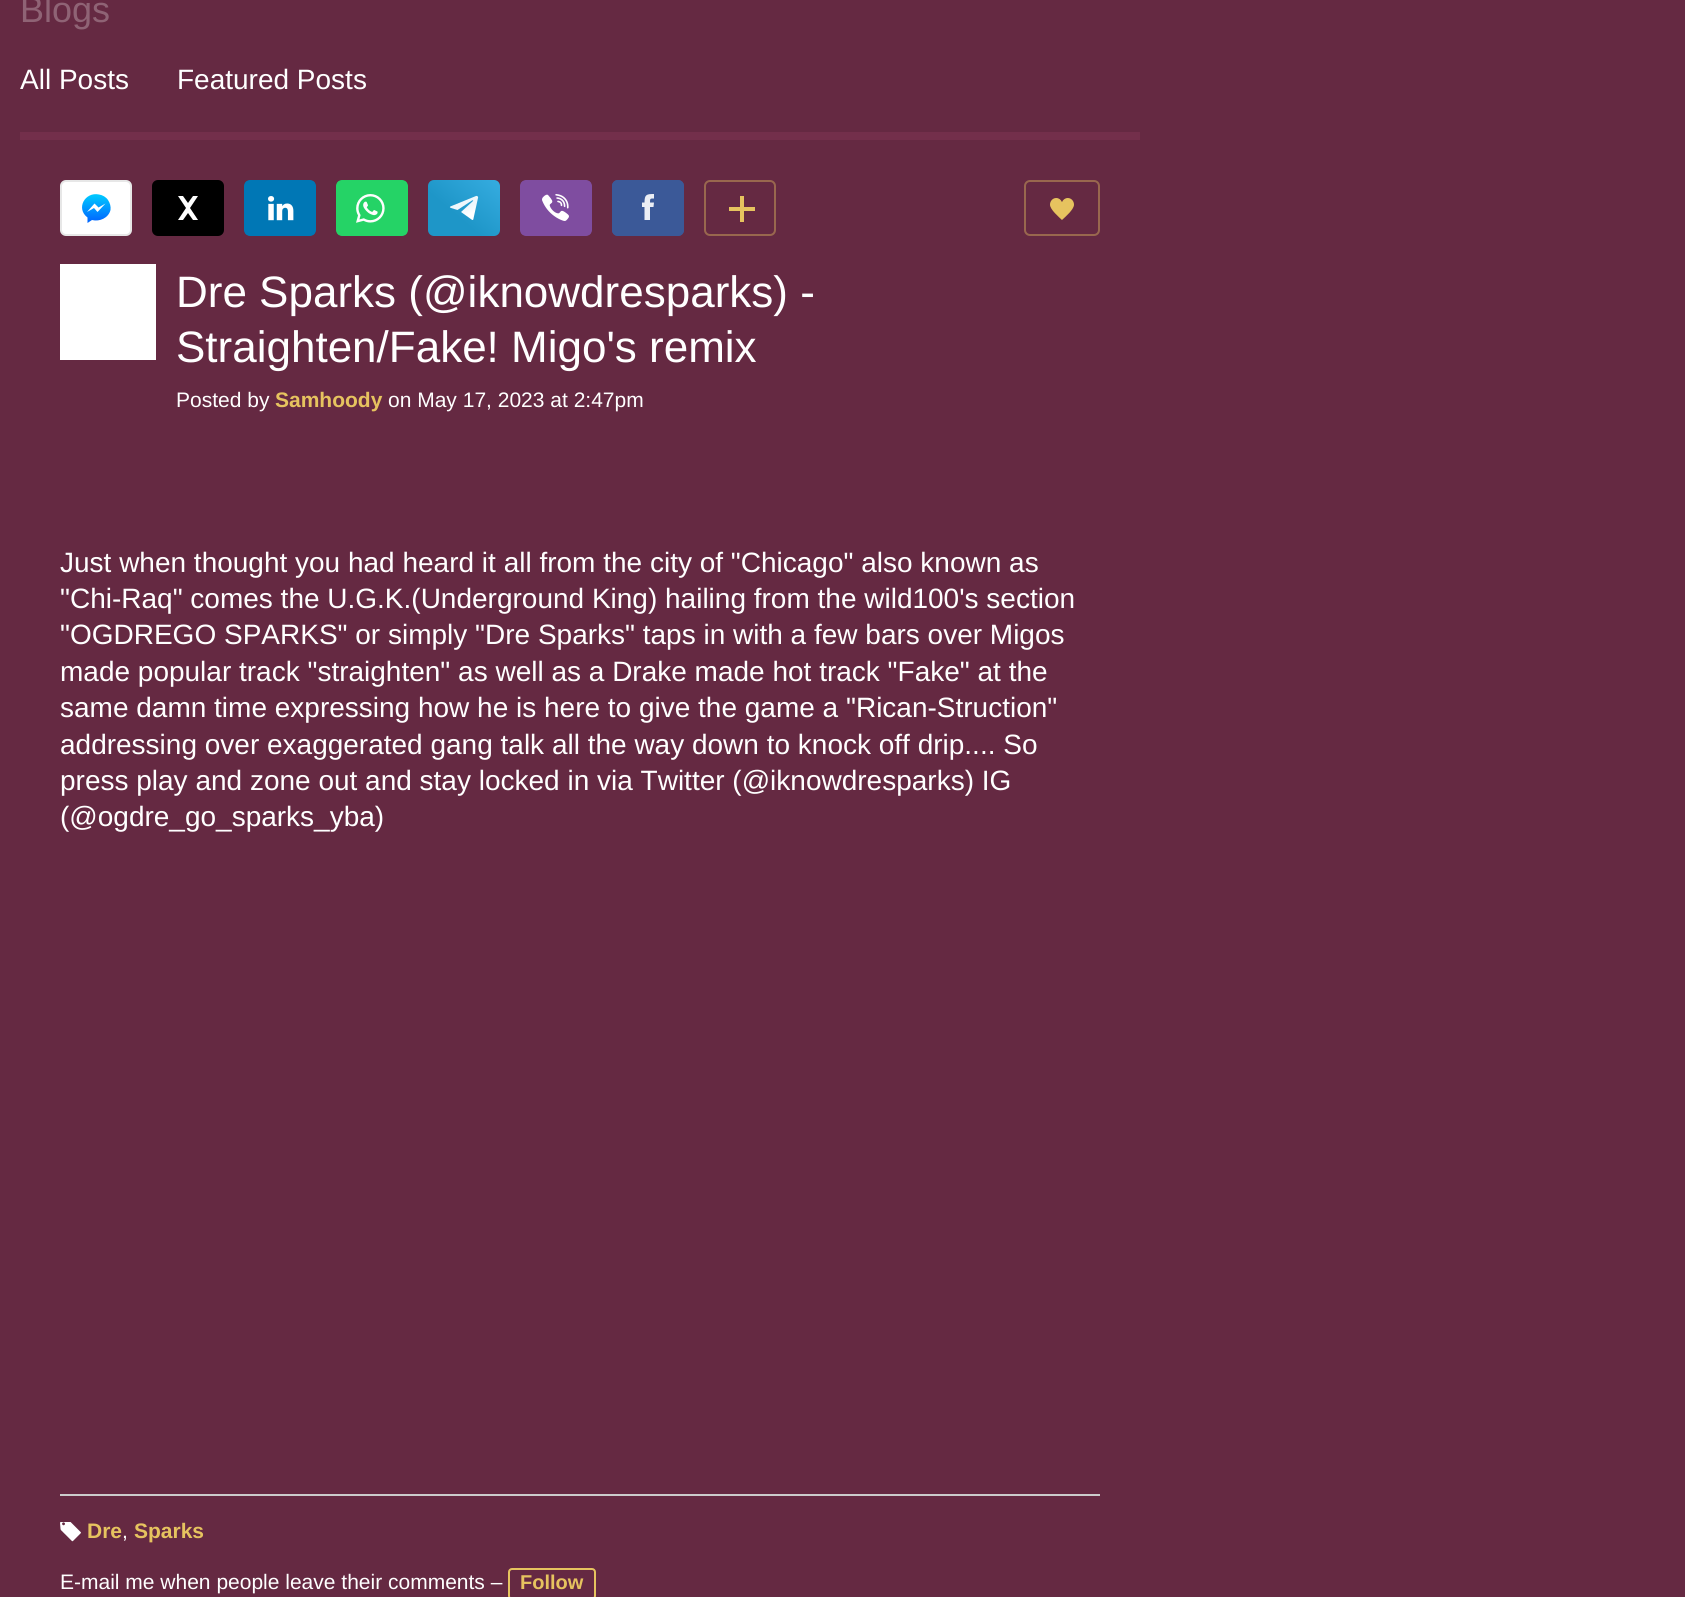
#include <cairo.h>
#include <math.h>
#include <stddef.h>

typedef struct { double x, y; const char *s; } line_t;

static void ink(cairo_t *ctx, unsigned color) {
    cairo_set_source_rgb(ctx, (color >> 16) / 255.0, (color >> 8 & 255) / 255.0, (color & 255) / 255.0);
}

static void round_path(cairo_t *ctx, double x, double y, double w, double h, double r) {
    cairo_new_sub_path(ctx);
    cairo_arc(ctx, x + w - r, y + h - r, r, 0, M_PI / 2);
    cairo_arc(ctx, x + r, y + h - r, r, M_PI / 2, M_PI);
    cairo_arc(ctx, x + r, y + r, r, M_PI, 1.5 * M_PI);
    cairo_arc(ctx, x + w - r, y + r, r, 1.5 * M_PI, 2 * M_PI);
    cairo_close_path(ctx);
}

static void paste(cairo_t *ctx, const char *path, double x, double y, double w, double h) {
    cairo_surface_t *image = cairo_image_surface_create_from_png(path);
    cairo_save(ctx);
    cairo_set_source_surface(ctx, image, x, y);
    cairo_rectangle(ctx, x, y, w, h);
    cairo_fill(ctx);
    cairo_restore(ctx);
    cairo_surface_destroy(image);
}

int main(void) {
    cairo_surface_t *surface = cairo_image_surface_create(CAIRO_FORMAT_RGB24, 1685, 1597);
    cairo_t *ctx = cairo_create(surface);
    cairo_font_options_t *options = cairo_font_options_create();
    cairo_font_options_set_hint_metrics(options, CAIRO_HINT_METRICS_OFF);
    cairo_font_options_set_hint_style(options, CAIRO_HINT_STYLE_NONE);
    cairo_set_font_options(ctx, options);
    cairo_set_miter_limit(ctx, 4);
    cairo_pattern_t *gradient;
    ink(ctx, 0x652942);
    cairo_paint(ctx);
    cairo_select_font_face(ctx, "Liberation Sans", CAIRO_FONT_SLANT_NORMAL, CAIRO_FONT_WEIGHT_NORMAL);
    cairo_set_font_size(ctx, 36);
    ink(ctx, 0x8F6375);
    cairo_move_to(ctx, 20, 22);
    cairo_show_text(ctx, "Blogs");
    cairo_set_font_size(ctx, 28);
    ink(ctx, 0xFFFFFF);
    cairo_move_to(ctx, 20, 89);
    cairo_show_text(ctx, "All Posts");
    cairo_move_to(ctx, 177, 89);
    cairo_show_text(ctx, "Featured Posts");
    ink(ctx, 0x732F4B);
    cairo_rectangle(ctx, 20, 132, 1120, 8);
    cairo_fill(ctx);
    ink(ctx, 0xFFFFFF);
    round_path(ctx, 61, 181, 70, 54, 5);
    cairo_fill_preserve(ctx);
    ink(ctx, 0xE7E7E7);
    cairo_stroke(ctx);
    gradient = cairo_pattern_create_linear(96, 196, 96, 221);
    cairo_pattern_add_color_stop_rgba(gradient, 0, 0, 0.776, 1, 1);
    cairo_pattern_add_color_stop_rgba(gradient, 1, 0, 0.408, 1, 1);
    cairo_set_source(ctx, gradient);
    cairo_pattern_destroy(gradient);
    cairo_new_path(ctx);
    cairo_move_to(ctx, 87.5, 217.5);
    cairo_line_to(ctx, 87.5, 223);
    cairo_line_to(ctx, 92, 220);
    cairo_curve_to(ctx, 99.5, 222, 108.5, 218, 110.5, 210);
    cairo_curve_to(ctx, 111, 206.5, 110, 203, 108, 200);
    cairo_curve_to(ctx, 106, 197, 102.5, 195, 99, 194.5);
    cairo_curve_to(ctx, 85, 191.5, 75.5, 208.5, 87.5, 217.5);
    cairo_close_path(ctx);
    cairo_fill(ctx);
    ink(ctx, 0xFFFFFF);
    cairo_new_path(ctx);
    cairo_move_to(ctx, 94.5, 203.5);
    cairo_line_to(ctx, 87, 212);
    cairo_line_to(ctx, 94, 208);
    cairo_line_to(ctx, 97.5, 212);
    cairo_line_to(ctx, 105.5, 203.5);
    cairo_line_to(ctx, 98.5, 207.5);
    cairo_close_path(ctx);
    cairo_fill(ctx);
    ink(ctx, 0x000000);
    round_path(ctx, 152, 180, 72, 56, 6);
    cairo_fill(ctx);
    ink(ctx, 0xFFFFFF);
    cairo_set_fill_rule(ctx, CAIRO_FILL_RULE_EVEN_ODD);
    cairo_new_path(ctx);
    cairo_move_to(ctx, 178, 196);
    cairo_line_to(ctx, 186, 208);
    cairo_line_to(ctx, 178, 220);
    cairo_line_to(ctx, 183, 220);
    cairo_line_to(ctx, 188, 213);
    cairo_line_to(ctx, 193, 220);
    cairo_line_to(ctx, 198, 220);
    cairo_line_to(ctx, 190, 208);
    cairo_line_to(ctx, 198, 196);
    cairo_line_to(ctx, 193, 196);
    cairo_line_to(ctx, 188, 203);
    cairo_line_to(ctx, 183, 196);
    cairo_close_path(ctx);
    cairo_fill(ctx);
    paste(ctx, "media/1.png", 244, 180, 72, 56);
    paste(ctx, "media/2.png", 336, 180, 72, 56);
    gradient = cairo_pattern_create_linear(507, 181, 469, 226);
    cairo_pattern_add_color_stop_rgba(gradient, 0, 0.216, 0.682, 0.886, 1);
    cairo_pattern_add_color_stop_rgba(gradient, 1, 0.118, 0.588, 0.784, 1);
    cairo_set_source(ctx, gradient);
    cairo_pattern_destroy(gradient);
    round_path(ctx, 428, 180, 72, 56, 6);
    cairo_fill(ctx);
    gradient = cairo_pattern_create_linear(467, 207, 470, 214);
    cairo_pattern_add_color_stop_rgba(gradient, 0, 0.937, 0.969, 0.988, 1);
    cairo_pattern_add_color_stop_rgba(gradient, 1, 1, 1, 1, 1);
    cairo_set_source(ctx, gradient);
    cairo_pattern_destroy(gradient);
    cairo_set_fill_rule(ctx, CAIRO_FILL_RULE_WINDING);
    cairo_new_path(ctx);
    cairo_move_to(ctx, 461, 212);
    cairo_line_to(ctx, 471.5, 219.5);
    cairo_curve_to(ctx, 472.5, 220.5, 473.5, 220, 473.5, 218.5);
    cairo_line_to(ctx, 478, 198);
    cairo_curve_to(ctx, 478.5, 196.5, 477, 195.5, 476, 196);
    cairo_line_to(ctx, 451.5, 206);
    cairo_curve_to(ctx, 449.5, 206.5, 449.5, 207.5, 451, 208);
    cairo_line_to(ctx, 457.5, 210);
    cairo_line_to(ctx, 472, 200.5);
    cairo_curve_to(ctx, 473, 200, 473.5, 200.5, 473, 201);
    cairo_fill(ctx);
    paste(ctx, "media/3.png", 520, 180, 72, 56);
    ink(ctx, 0x3B5998);
    round_path(ctx, 612, 180, 72, 56, 6);
    cairo_fill(ctx);
    cairo_set_source_rgba(ctx, 0.231, 0.349, 0.596, 0.9);
    round_path(ctx, 612, 180, 72, 56, 6);
    cairo_fill(ctx);
    ink(ctx, 0xEBEEF5);
    cairo_new_path(ctx);
    cairo_move_to(ctx, 650, 220);
    cairo_line_to(ctx, 650, 207);
    cairo_line_to(ctx, 653.5, 207);
    cairo_line_to(ctx, 654, 202.5);
    cairo_line_to(ctx, 650, 202.5);
    cairo_curve_to(ctx, 650, 198.5, 650, 198.5, 654, 198.5);
    cairo_line_to(ctx, 654, 194);
    cairo_curve_to(ctx, 646.5, 194, 644.5, 194.5, 644.5, 202.5);
    cairo_line_to(ctx, 642, 202.5);
    cairo_line_to(ctx, 642, 207);
    cairo_line_to(ctx, 644.5, 207);
    cairo_line_to(ctx, 644.5, 220);
    cairo_close_path(ctx);
    cairo_fill(ctx);
    round_path(ctx, 705, 181, 70, 54, 5);
    ink(ctx, 0x99674E);
    cairo_stroke(ctx);
    ink(ctx, 0xE6C35F);
    cairo_rectangle(ctx, 740, 196, 4, 26);
    cairo_fill(ctx);
    cairo_rectangle(ctx, 729, 207, 26, 4);
    cairo_fill(ctx);
    round_path(ctx, 1025, 181, 74, 54, 5);
    ink(ctx, 0x99674E);
    cairo_stroke(ctx);
    paste(ctx, "media/4.png", 1050, 198, 24, 22);
    ink(ctx, 0xFFFFFF);
    cairo_rectangle(ctx, 60, 264, 96, 96);
    cairo_fill(ctx);
    cairo_set_font_size(ctx, 44);
    cairo_move_to(ctx, 176, 307);
    cairo_show_text(ctx, "Dre Sparks (@iknowdresparks) -");
    cairo_move_to(ctx, 176, 362);
    cairo_show_text(ctx, "Straighten/Fake! Migo's remix");
    cairo_set_font_size(ctx, 21);
    cairo_move_to(ctx, 176, 407);
    cairo_show_text(ctx, "Posted by");
    cairo_select_font_face(ctx, "Liberation Sans", CAIRO_FONT_SLANT_NORMAL, CAIRO_FONT_WEIGHT_BOLD);
    ink(ctx, 0xE6C35F);
    cairo_move_to(ctx, 275, 407);
    cairo_show_text(ctx, "Samhoody");
    cairo_select_font_face(ctx, "Liberation Sans", CAIRO_FONT_SLANT_NORMAL, CAIRO_FONT_WEIGHT_NORMAL);
    ink(ctx, 0xFFFFFF);
    cairo_move_to(ctx, 388, 407);
    cairo_show_text(ctx, "on May 17, 2023 at 2:47pm");
    cairo_set_font_size(ctx, 28);
    {
        static const line_t items[] = {
            {60, 572, "Just when thought you had heard it all from the city of \"Chicago\" also known as"},
            {60, 608, "\"Chi-Raq\" comes the U.G.K.(Underground King) hailing from the wild100's section"},
            {60, 644, "\"OGDREGO SPARKS\" or simply \"Dre Sparks\" taps in with a few bars over Migos"},
            {60, 681, "made popular track \"straighten\" as well as a Drake made hot track \"Fake\" at the"},
            {60, 717, "same damn time expressing how he is here to give the game a \"Rican-Struction\""},
            {60, 754, "addressing over exaggerated gang talk all the way down to knock off drip.... So"},
            {60, 790, "press play and zone out and stay locked in via Twitter (@iknowdresparks) IG"},
            {60, 826, "(@ogdre_go_sparks_yba)"},
        };
        for (size_t i = 0; i < sizeof items / sizeof *items; i++) {
            cairo_move_to(ctx, items[i].x, items[i].y);
            cairo_show_text(ctx, items[i].s);
        }
    }
    ink(ctx, 0xCCCCCC);
    cairo_rectangle(ctx, 60, 1494, 1040, 2);
    cairo_fill(ctx);
    paste(ctx, "media/5.png", 60, 1522, 21, 20);
    cairo_select_font_face(ctx, "Liberation Sans", CAIRO_FONT_SLANT_NORMAL, CAIRO_FONT_WEIGHT_BOLD);
    cairo_set_font_size(ctx, 21);
    ink(ctx, 0xE6C35F);
    cairo_move_to(ctx, 87, 1538);
    cairo_show_text(ctx, "Dre");
    cairo_select_font_face(ctx, "Liberation Sans", CAIRO_FONT_SLANT_NORMAL, CAIRO_FONT_WEIGHT_NORMAL);
    ink(ctx, 0xFFFFFF);
    cairo_move_to(ctx, 122, 1538);
    cairo_show_text(ctx, ",");
    cairo_select_font_face(ctx, "Liberation Sans", CAIRO_FONT_SLANT_NORMAL, CAIRO_FONT_WEIGHT_BOLD);
    ink(ctx, 0xE6C35F);
    cairo_move_to(ctx, 134, 1538);
    cairo_show_text(ctx, "Sparks");
    cairo_select_font_face(ctx, "Liberation Sans", CAIRO_FONT_SLANT_NORMAL, CAIRO_FONT_WEIGHT_NORMAL);
    ink(ctx, 0xFFFFFF);
    cairo_move_to(ctx, 60, 1589);
    cairo_show_text(ctx, "E-mail me when people leave their comments –");
    round_path(ctx, 509, 1569, 86, 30, 3);
    ink(ctx, 0xE6C35F);
    cairo_stroke(ctx);
    cairo_select_font_face(ctx, "Liberation Sans", CAIRO_FONT_SLANT_NORMAL, CAIRO_FONT_WEIGHT_BOLD);
    cairo_set_font_size(ctx, 20);
    cairo_move_to(ctx, 520, 1589);
    cairo_show_text(ctx, "Follow");
    cairo_surface_write_to_png(surface, "image.png");
    cairo_font_options_destroy(options);
    cairo_destroy(ctx);
    cairo_surface_destroy(surface);
    return 0;
}
